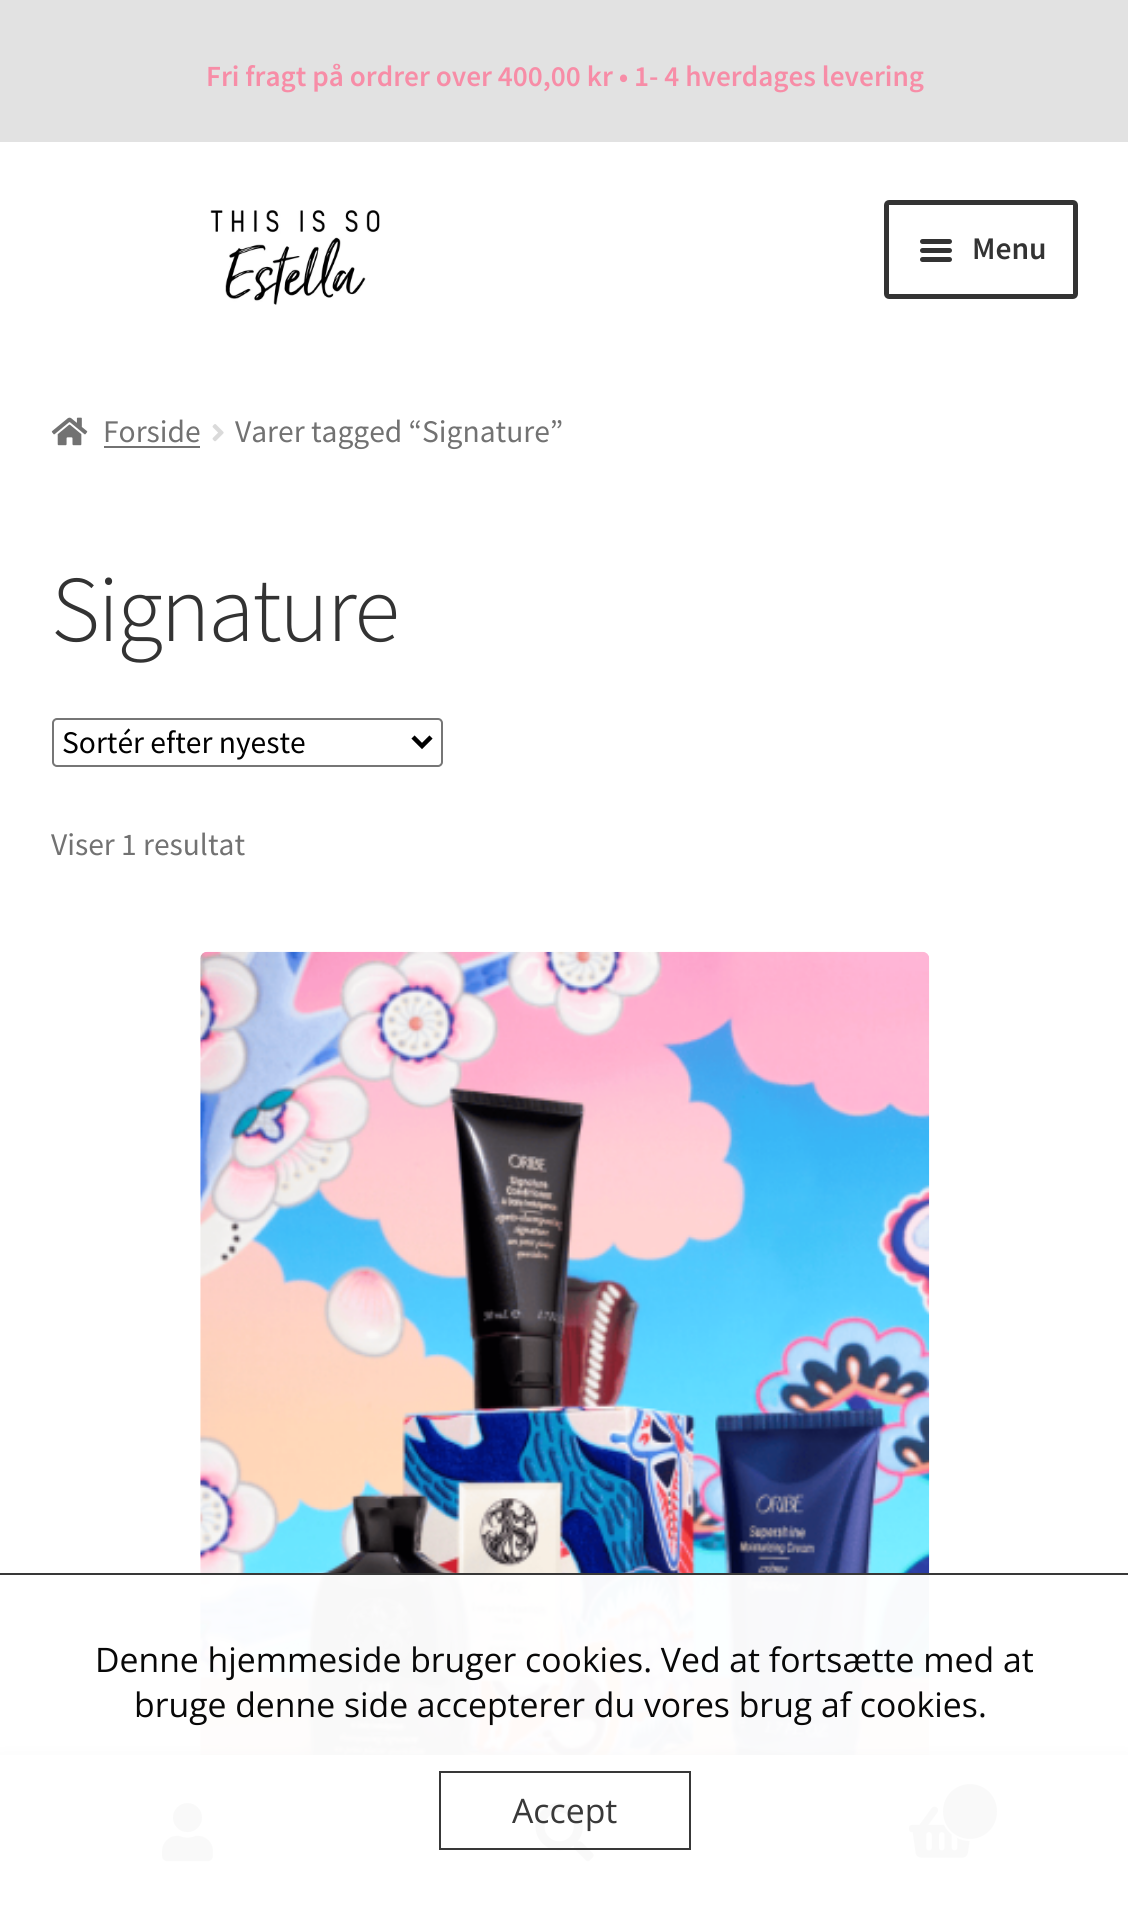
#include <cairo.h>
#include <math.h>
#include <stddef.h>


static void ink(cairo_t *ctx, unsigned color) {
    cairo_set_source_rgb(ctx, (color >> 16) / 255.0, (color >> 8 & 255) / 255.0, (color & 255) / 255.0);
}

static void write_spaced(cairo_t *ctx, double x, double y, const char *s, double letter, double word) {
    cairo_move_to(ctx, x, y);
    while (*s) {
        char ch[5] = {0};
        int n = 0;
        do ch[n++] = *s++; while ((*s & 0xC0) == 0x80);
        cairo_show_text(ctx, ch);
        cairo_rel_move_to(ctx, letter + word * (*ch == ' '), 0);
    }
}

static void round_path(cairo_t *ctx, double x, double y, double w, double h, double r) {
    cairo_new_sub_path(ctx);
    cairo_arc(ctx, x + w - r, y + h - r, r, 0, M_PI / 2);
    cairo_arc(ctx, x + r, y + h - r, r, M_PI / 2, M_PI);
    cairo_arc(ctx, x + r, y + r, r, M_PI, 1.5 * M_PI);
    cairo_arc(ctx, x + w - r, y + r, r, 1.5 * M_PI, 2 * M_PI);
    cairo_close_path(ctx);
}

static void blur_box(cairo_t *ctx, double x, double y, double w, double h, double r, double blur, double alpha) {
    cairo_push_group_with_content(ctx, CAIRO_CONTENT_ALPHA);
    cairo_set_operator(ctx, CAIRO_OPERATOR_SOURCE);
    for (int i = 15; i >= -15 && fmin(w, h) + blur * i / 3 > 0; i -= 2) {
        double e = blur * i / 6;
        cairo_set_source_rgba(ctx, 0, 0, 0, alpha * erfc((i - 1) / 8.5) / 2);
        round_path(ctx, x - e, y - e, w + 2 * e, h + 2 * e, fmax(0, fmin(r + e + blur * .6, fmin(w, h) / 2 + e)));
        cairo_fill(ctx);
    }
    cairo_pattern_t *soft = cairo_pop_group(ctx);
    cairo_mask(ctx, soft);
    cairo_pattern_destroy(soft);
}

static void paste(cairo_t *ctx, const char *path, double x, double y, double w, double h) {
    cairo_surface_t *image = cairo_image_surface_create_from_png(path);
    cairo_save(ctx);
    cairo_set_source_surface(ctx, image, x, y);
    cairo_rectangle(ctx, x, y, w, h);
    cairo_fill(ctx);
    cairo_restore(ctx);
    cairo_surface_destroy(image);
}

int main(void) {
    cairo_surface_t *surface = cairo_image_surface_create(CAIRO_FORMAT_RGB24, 1128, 1910);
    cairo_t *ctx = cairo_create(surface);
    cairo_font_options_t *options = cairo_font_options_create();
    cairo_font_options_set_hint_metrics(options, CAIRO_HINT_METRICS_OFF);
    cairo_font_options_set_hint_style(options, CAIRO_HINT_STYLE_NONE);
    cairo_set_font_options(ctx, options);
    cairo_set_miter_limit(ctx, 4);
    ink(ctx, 0xFFFFFF);
    cairo_paint(ctx);
    ink(ctx, 0xE2E2E2);
    cairo_rectangle(ctx, 0, 0, 1128, 142);
    cairo_fill(ctx);
    cairo_select_font_face(ctx, "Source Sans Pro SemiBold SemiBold", CAIRO_FONT_SLANT_NORMAL, CAIRO_FONT_WEIGHT_NORMAL);
    cairo_set_font_size(ctx, 29.25);
    ink(ctx, 0xF78DA7);
    cairo_move_to(ctx, 206, 86);
    cairo_show_text(ctx, "Fri fragt på ordrer over 400,00 kr • 1- 4 hverdages levering");
    paste(ctx, "media/1.png", 210, 210, 170, 95);
    round_path(ctx, 886.5, 202.5, 189, 94, 2.5);
    ink(ctx, 0x333333);
    cairo_set_line_width(ctx, 5);
    cairo_stroke(ctx);
    round_path(ctx, 920, 239, 32, 5, 2.5);
    cairo_fill(ctx);
    round_path(ctx, 920, 248, 32, 5, 2.5);
    cairo_fill(ctx);
    cairo_set_font_size(ctx, 31.5);
    cairo_move_to(ctx, 972, 259);
    cairo_show_text(ctx, "Menu");
    round_path(ctx, 920, 257, 32, 5, 2.5);
    cairo_fill(ctx);
    paste(ctx, "media/2.png", 51, 417, 37, 29);
    cairo_select_font_face(ctx, "Source Sans Pro", CAIRO_FONT_SLANT_NORMAL, CAIRO_FONT_WEIGHT_NORMAL);
    ink(ctx, 0x727272);
    cairo_move_to(ctx, 103, 442);
    cairo_show_text(ctx, "Forside");
    cairo_rectangle(ctx, 104, 446, 96, 2);
    cairo_fill(ctx);
    paste(ctx, "media/3.png", 212, 424, 12, 18);
    cairo_move_to(ctx, 235, 442);
    cairo_show_text(ctx, "Varer tagged “Signature”");
    cairo_select_font_face(ctx, "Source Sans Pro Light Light", CAIRO_FONT_SLANT_NORMAL, CAIRO_FONT_WEIGHT_NORMAL);
    cairo_set_font_size(ctx, 94);
    ink(ctx, 0x333333);
    write_spaced(ctx, 51, 641, "Signature", -2.25, 0);
    round_path(ctx, 53, 719, 389, 47, 4);
    ink(ctx, 0x767676);
    cairo_set_line_width(ctx, 2);
    cairo_stroke(ctx);
    cairo_new_path(ctx);
    cairo_move_to(ctx, 413, 737);
    cairo_line_to(ctx, 422, 746);
    cairo_line_to(ctx, 431, 737);
    ink(ctx, 0x000000);
    cairo_set_line_width(ctx, 4.5);
    cairo_stroke(ctx);
    cairo_select_font_face(ctx, "Source Sans Pro", CAIRO_FONT_SLANT_NORMAL, CAIRO_FONT_WEIGHT_NORMAL);
    cairo_set_font_size(ctx, 31.5);
    cairo_move_to(ctx, 62, 753);
    cairo_show_text(ctx, "Sortér efter nyeste");
    ink(ctx, 0x727272);
    cairo_move_to(ctx, 51, 855);
    cairo_show_text(ctx, "Viser 1 resultat");
    paste(ctx, "media/4.png", 200, 951, 730, 804);
    ink(ctx, 0x000000);
    blur_box(ctx, 0, 1755, 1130, 155, 0, 7, 0.7);
    ink(ctx, 0xFFFFFF);
    cairo_rectangle(ctx, 0, 1755, 1128, 2);
    cairo_fill(ctx);
    cairo_rectangle(ctx, 0, 1757, 1128, 153);
    cairo_fill(ctx);
    paste(ctx, "media/5.png", 162, 1803, 51, 59);
    paste(ctx, "media/6.png", 535, 1803, 59, 59);
    paste(ctx, "media/7.png", 909, 1806, 61, 52);
    ink(ctx, 0x333333);
    round_path(ctx, 942, 1783, 56, 57, 28);
    cairo_fill_preserve(ctx);
    ink(ctx, 0xFFFFFF);
    cairo_set_line_width(ctx, 2);
    cairo_stroke(ctx);
    cairo_set_source_rgba(ctx, 1, 1, 1, 0.97);
    cairo_rectangle(ctx, 0, 1573, 1128, 289);
    cairo_fill(ctx);
    cairo_set_source_rgba(ctx, 0.2, 0.2, 0.2, 0.97);
    cairo_rectangle(ctx, 0, 1573, 1128, 2);
    cairo_fill(ctx);
    cairo_select_font_face(ctx, "Open Sans", CAIRO_FONT_SLANT_NORMAL, CAIRO_FONT_WEIGHT_NORMAL);
    cairo_set_font_size(ctx, 33.75);
    ink(ctx, 0x080808);
    cairo_move_to(ctx, 95, 1672);
    cairo_show_text(ctx, "Denne hjemmeside bruger cookies. Ved at fortsætte med at");
    cairo_move_to(ctx, 134, 1717);
    cairo_show_text(ctx, "bruge denne side accepterer du vores brug af cookies.");
    cairo_rectangle(ctx, 440, 1772, 250, 77);
    cairo_set_source_rgba(ctx, 0.2, 0.2, 0.2, 0.97);
    cairo_stroke(ctx);
    ink(ctx, 0x393939);
    cairo_move_to(ctx, 512, 1823);
    cairo_show_text(ctx, "Accept");
    cairo_surface_write_to_png(surface, "image.png");
    cairo_font_options_destroy(options);
    cairo_destroy(ctx);
    cairo_surface_destroy(surface);
    return 0;
}
